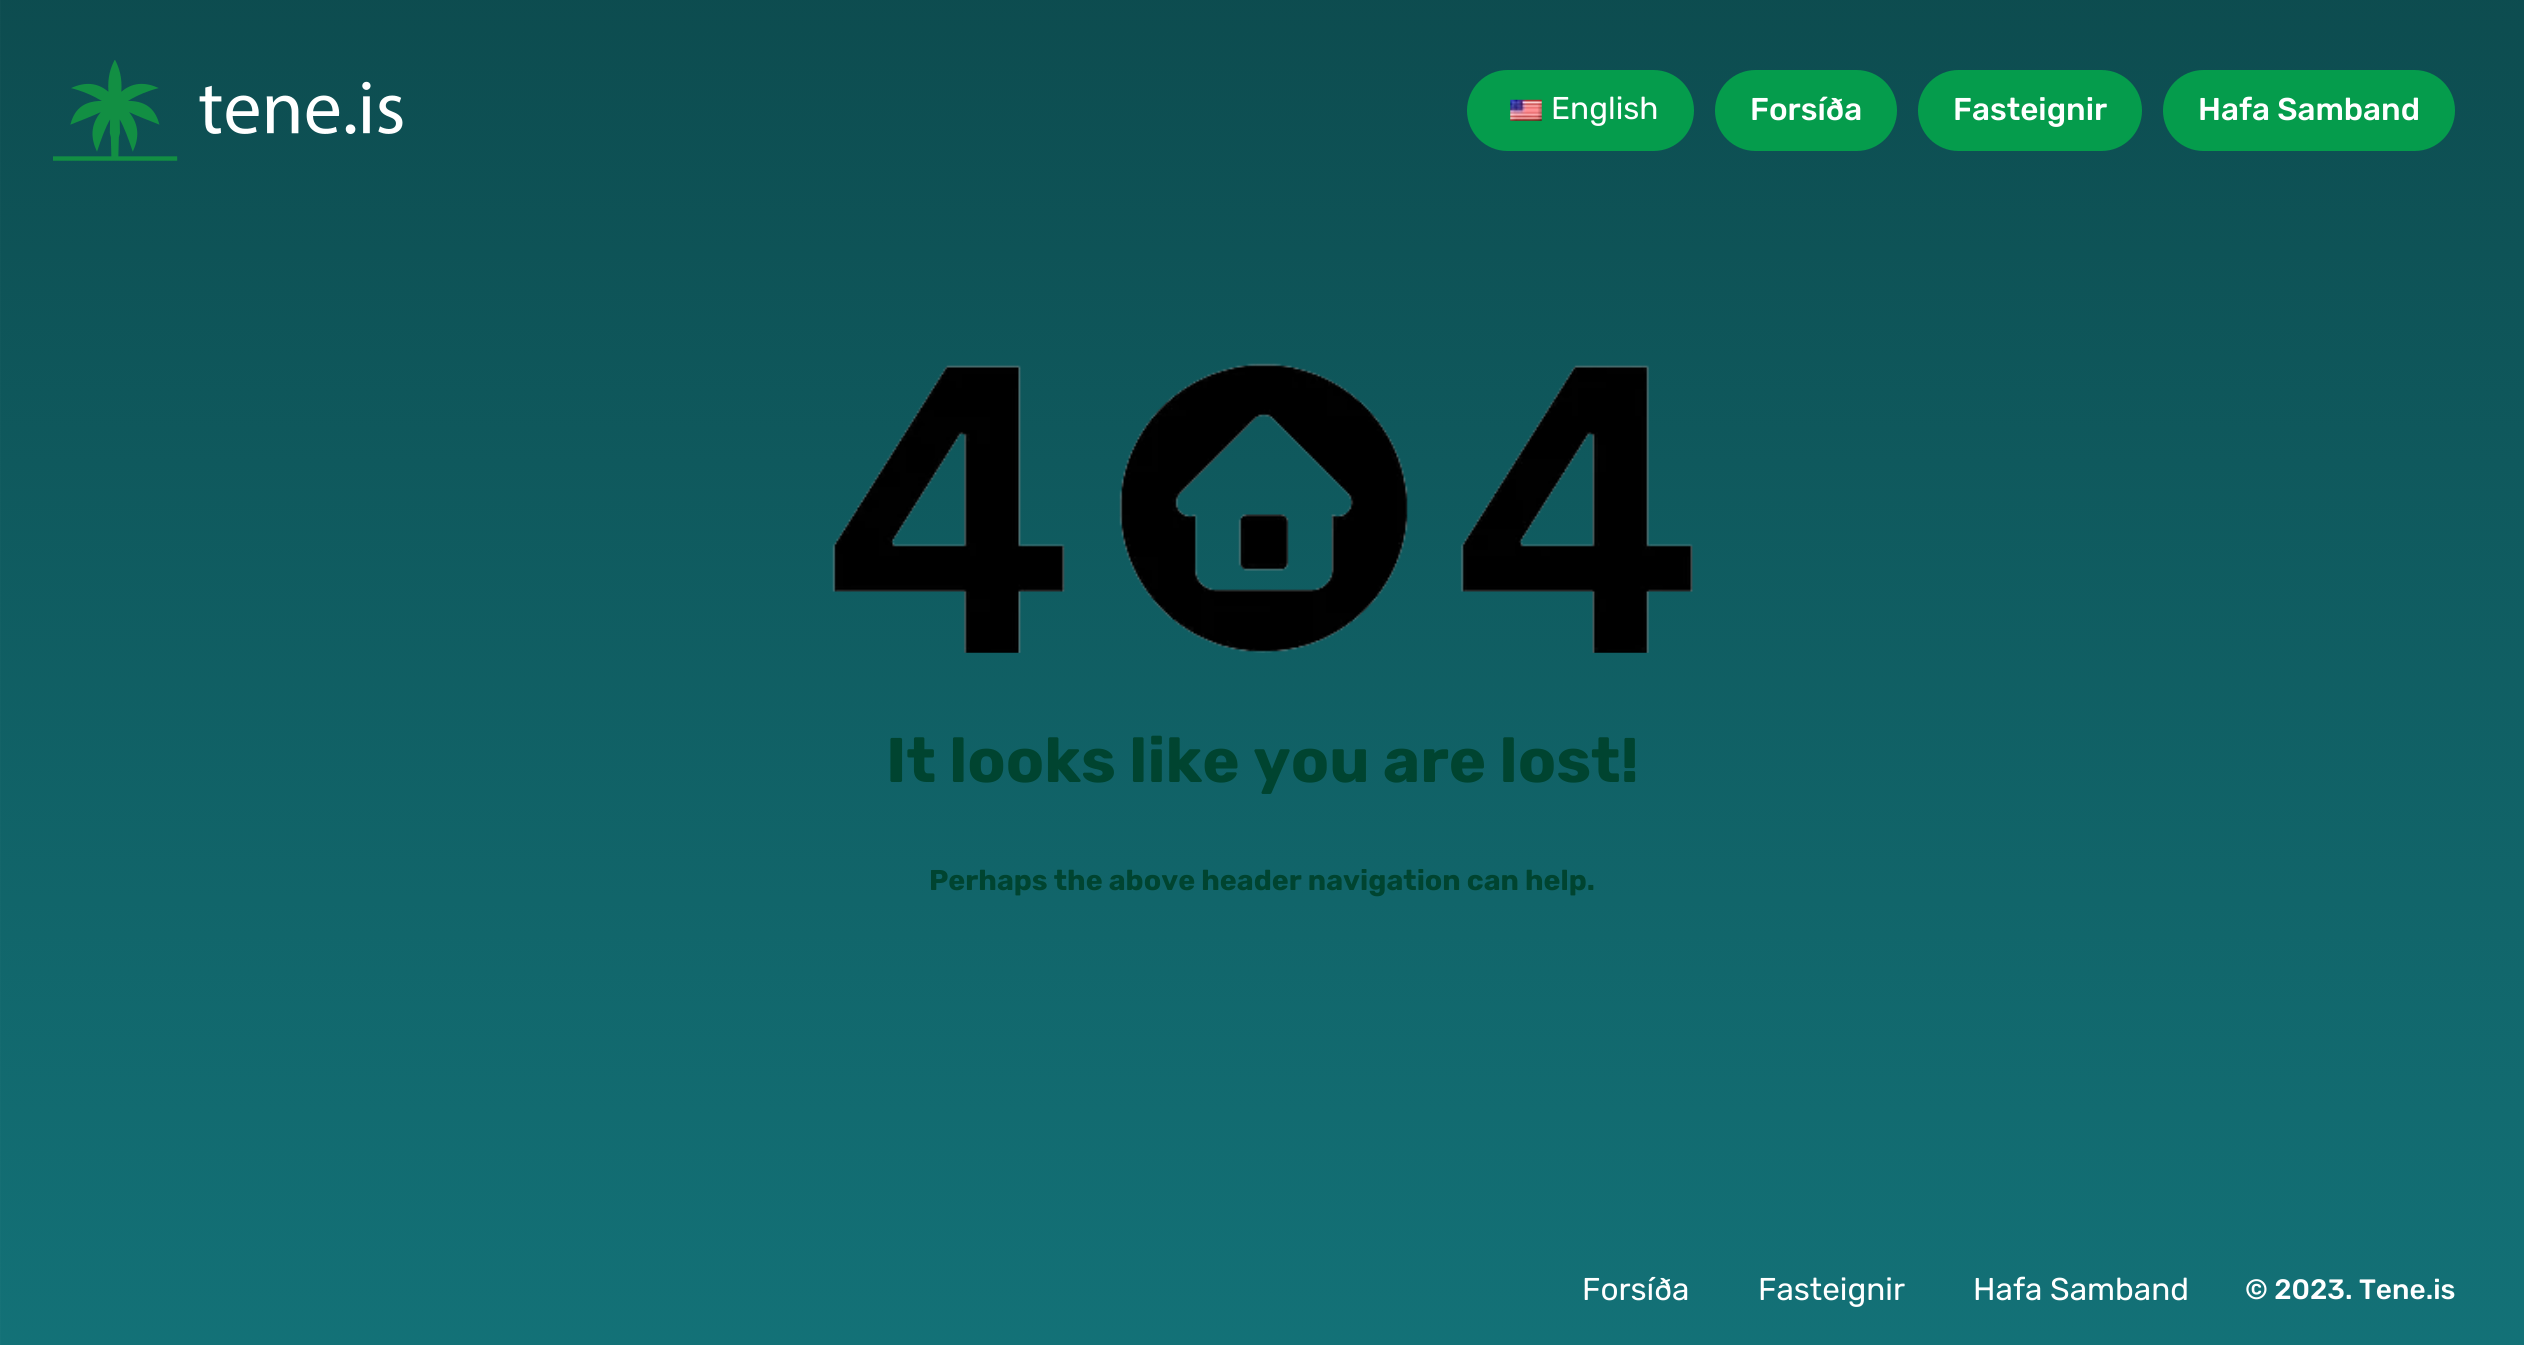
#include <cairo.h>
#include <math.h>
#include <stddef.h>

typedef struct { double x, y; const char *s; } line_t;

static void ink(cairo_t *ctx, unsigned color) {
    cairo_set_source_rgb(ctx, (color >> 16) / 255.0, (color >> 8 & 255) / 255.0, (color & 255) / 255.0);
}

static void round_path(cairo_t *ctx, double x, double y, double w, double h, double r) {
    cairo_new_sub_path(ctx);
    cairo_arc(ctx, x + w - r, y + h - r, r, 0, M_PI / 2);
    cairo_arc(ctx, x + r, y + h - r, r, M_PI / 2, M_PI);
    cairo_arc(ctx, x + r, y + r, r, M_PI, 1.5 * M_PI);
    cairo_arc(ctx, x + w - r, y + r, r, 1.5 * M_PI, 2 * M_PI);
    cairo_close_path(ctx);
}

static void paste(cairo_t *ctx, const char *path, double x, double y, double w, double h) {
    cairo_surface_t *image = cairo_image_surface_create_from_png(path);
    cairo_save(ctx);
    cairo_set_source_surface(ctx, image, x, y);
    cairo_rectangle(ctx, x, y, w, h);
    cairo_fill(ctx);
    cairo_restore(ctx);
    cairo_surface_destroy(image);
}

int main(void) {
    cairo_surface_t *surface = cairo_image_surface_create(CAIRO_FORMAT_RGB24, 2524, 1345);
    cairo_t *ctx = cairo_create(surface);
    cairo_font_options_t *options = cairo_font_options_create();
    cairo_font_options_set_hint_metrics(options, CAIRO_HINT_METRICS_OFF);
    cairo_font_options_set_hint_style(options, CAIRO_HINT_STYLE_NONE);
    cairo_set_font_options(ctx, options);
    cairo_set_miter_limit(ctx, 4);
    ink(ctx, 0xFFFFFF);
    cairo_paint(ctx);
    paste(ctx, "media/1.png", 0, 0, 2524, 1345);
    paste(ctx, "media/2.png", 53, 60, 350, 101);
    ink(ctx, 0x059C4C);
    round_path(ctx, 1467, 70, 227, 81, 40.5);
    cairo_fill(ctx);
    paste(ctx, "media/3.png", 1510, 99, 32, 22);
    cairo_select_font_face(ctx, "Rubik", CAIRO_FONT_SLANT_NORMAL, CAIRO_FONT_WEIGHT_NORMAL);
    cairo_set_font_size(ctx, 31.5);
    ink(ctx, 0xFFFFFF);
    cairo_move_to(ctx, 1551, 119);
    cairo_show_text(ctx, "English");
    ink(ctx, 0x059C4C);
    round_path(ctx, 1715, 70, 182, 81, 40.5);
    cairo_fill(ctx);
    cairo_select_font_face(ctx, "Rubik Medium", CAIRO_FONT_SLANT_NORMAL, CAIRO_FONT_WEIGHT_NORMAL);
    ink(ctx, 0xFFFFFF);
    cairo_move_to(ctx, 1750, 120);
    cairo_show_text(ctx, "Forsíða");
    ink(ctx, 0x059C4C);
    round_path(ctx, 1918, 70, 224, 81, 40.5);
    cairo_fill(ctx);
    ink(ctx, 0xFFFFFF);
    cairo_move_to(ctx, 1953, 120);
    cairo_show_text(ctx, "Fasteignir");
    ink(ctx, 0x059C4C);
    round_path(ctx, 2163, 70, 292, 81, 40.5);
    cairo_fill(ctx);
    ink(ctx, 0xFFFFFF);
    cairo_move_to(ctx, 2198, 120);
    cairo_show_text(ctx, "Hafa Samband");
    paste(ctx, "media/4.png", 832, 363, 861, 290);
    cairo_select_font_face(ctx, "Rubik", CAIRO_FONT_SLANT_NORMAL, CAIRO_FONT_WEIGHT_BOLD);
    cairo_set_font_size(ctx, 63);
    ink(ctx, 0x004430);
    cairo_move_to(ctx, 886, 782);
    cairo_show_text(ctx, "It looks like you are lost!");
    cairo_set_font_size(ctx, 28.6);
    cairo_move_to(ctx, 929, 890);
    cairo_show_text(ctx, "Perhaps the above header navigation can help.");
    cairo_select_font_face(ctx, "Rubik", CAIRO_FONT_SLANT_NORMAL, CAIRO_FONT_WEIGHT_NORMAL);
    cairo_set_font_size(ctx, 31.5);
    ink(ctx, 0xFFFFFF);
    {
        static const line_t items[] = {
            {1582, 1300, "Forsíða"},
            {1758, 1300, "Fasteignir"},
            {1973, 1300, "Hafa Samband"},
        };
        for (size_t i = 0; i < sizeof items / sizeof *items; i++) {
            cairo_move_to(ctx, items[i].x, items[i].y);
            cairo_show_text(ctx, items[i].s);
        }
    }
    cairo_select_font_face(ctx, "Rubik Medium", CAIRO_FONT_SLANT_NORMAL, CAIRO_FONT_WEIGHT_NORMAL);
    cairo_set_font_size(ctx, 28);
    cairo_move_to(ctx, 2245, 1299);
    cairo_show_text(ctx, "© 2023. Tene.is");
    cairo_surface_write_to_png(surface, "image.png");
    cairo_font_options_destroy(options);
    cairo_destroy(ctx);
    cairo_surface_destroy(surface);
    return 0;
}
